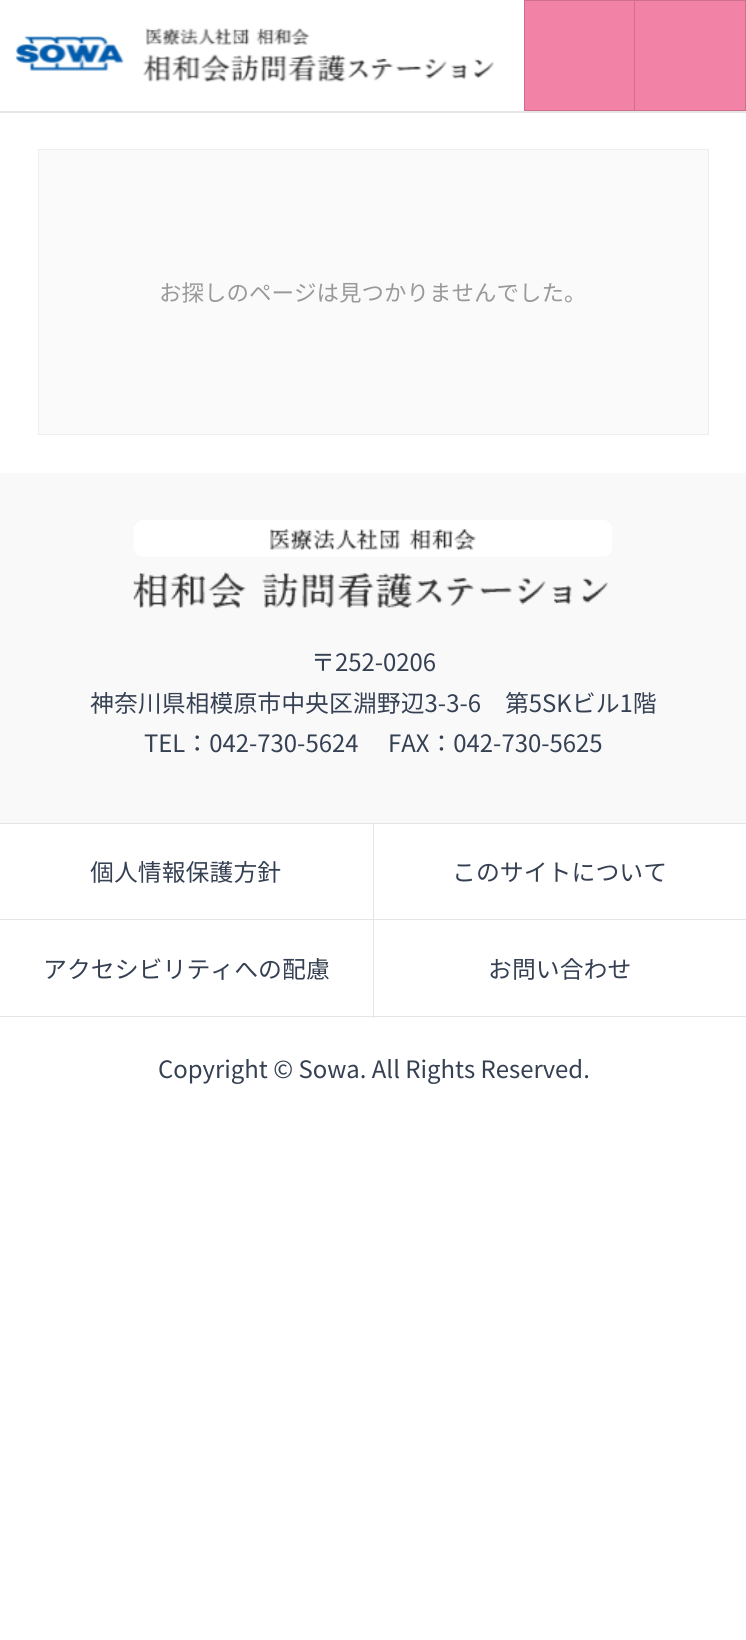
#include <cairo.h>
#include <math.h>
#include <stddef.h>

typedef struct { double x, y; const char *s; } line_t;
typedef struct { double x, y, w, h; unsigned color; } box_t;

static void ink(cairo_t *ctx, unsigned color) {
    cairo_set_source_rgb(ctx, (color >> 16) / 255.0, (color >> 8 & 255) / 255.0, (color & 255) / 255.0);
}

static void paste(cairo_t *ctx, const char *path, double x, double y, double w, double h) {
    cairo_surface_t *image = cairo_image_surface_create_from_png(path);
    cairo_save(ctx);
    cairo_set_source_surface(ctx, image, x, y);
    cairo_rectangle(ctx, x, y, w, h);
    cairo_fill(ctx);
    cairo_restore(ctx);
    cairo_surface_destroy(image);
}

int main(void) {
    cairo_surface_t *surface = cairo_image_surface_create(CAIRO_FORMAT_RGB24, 746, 1640);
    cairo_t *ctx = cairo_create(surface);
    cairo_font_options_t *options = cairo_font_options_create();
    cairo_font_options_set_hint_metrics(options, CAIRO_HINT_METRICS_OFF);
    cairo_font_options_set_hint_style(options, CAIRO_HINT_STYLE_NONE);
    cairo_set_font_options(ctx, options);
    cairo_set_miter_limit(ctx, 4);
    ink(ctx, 0xFFFFFF);
    cairo_paint(ctx);
    ink(ctx, 0xE6E6E6);
    cairo_rectangle(ctx, 0, 111, 746, 2);
    cairo_fill(ctx);
    paste(ctx, "media/1.png", 15, 28, 479, 55);
    ink(ctx, 0xF282A6);
    cairo_rectangle(ctx, 524.5, 0.5, 110, 110);
    cairo_fill_preserve(ctx);
    ink(ctx, 0xCE6F8D);
    cairo_set_line_width(ctx, 1);
    cairo_stroke(ctx);
    ink(ctx, 0xF282A6);
    cairo_rectangle(ctx, 635, 0, 111, 111);
    cairo_fill(ctx);
    ink(ctx, 0xCE6F8D);
    cairo_new_path(ctx);
    cairo_move_to(ctx, 635, 0);
    cairo_line_to(ctx, 746, 0);
    cairo_line_to(ctx, 745, 1);
    cairo_line_to(ctx, 635, 1);
    cairo_close_path(ctx);
    cairo_fill(ctx);
    cairo_set_source_rgba(ctx, 0, 0, 0, 0.15);
    cairo_new_path(ctx);
    cairo_move_to(ctx, 746, 0);
    cairo_line_to(ctx, 746, 111);
    cairo_line_to(ctx, 745, 110);
    cairo_line_to(ctx, 745, 1);
    cairo_close_path(ctx);
    cairo_fill(ctx);
    cairo_new_path(ctx);
    cairo_move_to(ctx, 746, 111);
    cairo_line_to(ctx, 635, 111);
    cairo_line_to(ctx, 635, 110);
    cairo_line_to(ctx, 745, 110);
    cairo_close_path(ctx);
    cairo_fill(ctx);
    ink(ctx, 0xFAFAFA);
    cairo_rectangle(ctx, 38.5, 149.5, 670, 285);
    cairo_fill_preserve(ctx);
    ink(ctx, 0xEEEEEE);
    cairo_stroke(ctx);
    cairo_select_font_face(ctx, "Noto Sans JP", CAIRO_FONT_SLANT_NORMAL, CAIRO_FONT_WEIGHT_NORMAL);
    cairo_set_font_size(ctx, 22.5);
    ink(ctx, 0x999999);
    cairo_move_to(ctx, 159, 301);
    cairo_show_text(ctx, "お探しのページは見つかりませんでした。");
    ink(ctx, 0xF9F9F9);
    cairo_rectangle(ctx, 0, 473, 746, 350);
    cairo_fill(ctx);
    paste(ctx, "media/2.png", 133, 520, 479, 89);
    cairo_set_font_size(ctx, 23.9);
    ink(ctx, 0x354052);
    {
        static const line_t items[] = {
            {311, 671, "〒252-0206"},
            {90, 712, "神奈川県相模原市中央区淵野辺3-3-6　第5SKビル1階"},
            {144, 752, "TEL：042-730-5624"},
            {388, 752, "FAX：042-730-5625"},
        };
        for (size_t i = 0; i < sizeof items / sizeof *items; i++) {
            cairo_move_to(ctx, items[i].x, items[i].y);
            cairo_show_text(ctx, items[i].s);
        }
    }
    {
        static const box_t items[] = {
            {0, 823, 746, 1, 0xE5E5E5},
            {373, 824, 1, 194, 0xE5E5E5},
            {0, 919, 746, 1, 0xE5E5E5},
        };
        for (size_t i = 0; i < sizeof items / sizeof *items; i++) {
            ink(ctx, items[i].color);
            cairo_rectangle(ctx, items[i].x, items[i].y, items[i].w, items[i].h);
            cairo_fill(ctx);
        }
    }
    ink(ctx, 0x354052);
    cairo_move_to(ctx, 90, 881);
    cairo_show_text(ctx, "個人情報保護方針");
    cairo_move_to(ctx, 452, 881);
    cairo_show_text(ctx, "このサイトについて");
    ink(ctx, 0xE5E5E5);
    cairo_rectangle(ctx, 0, 1016, 746, 1);
    cairo_fill(ctx);
    ink(ctx, 0x354052);
    {
        static const line_t items[] = {
            {43, 978, "アクセシビリティへの配慮"},
            {488, 978, "お問い合わせ"},
            {158, 1078, "Copyright © Sowa. All Rights Reserved."},
        };
        for (size_t i = 0; i < sizeof items / sizeof *items; i++) {
            cairo_move_to(ctx, items[i].x, items[i].y);
            cairo_show_text(ctx, items[i].s);
        }
    }
    cairo_surface_write_to_png(surface, "image.png");
    cairo_font_options_destroy(options);
    cairo_destroy(ctx);
    cairo_surface_destroy(surface);
    return 0;
}
